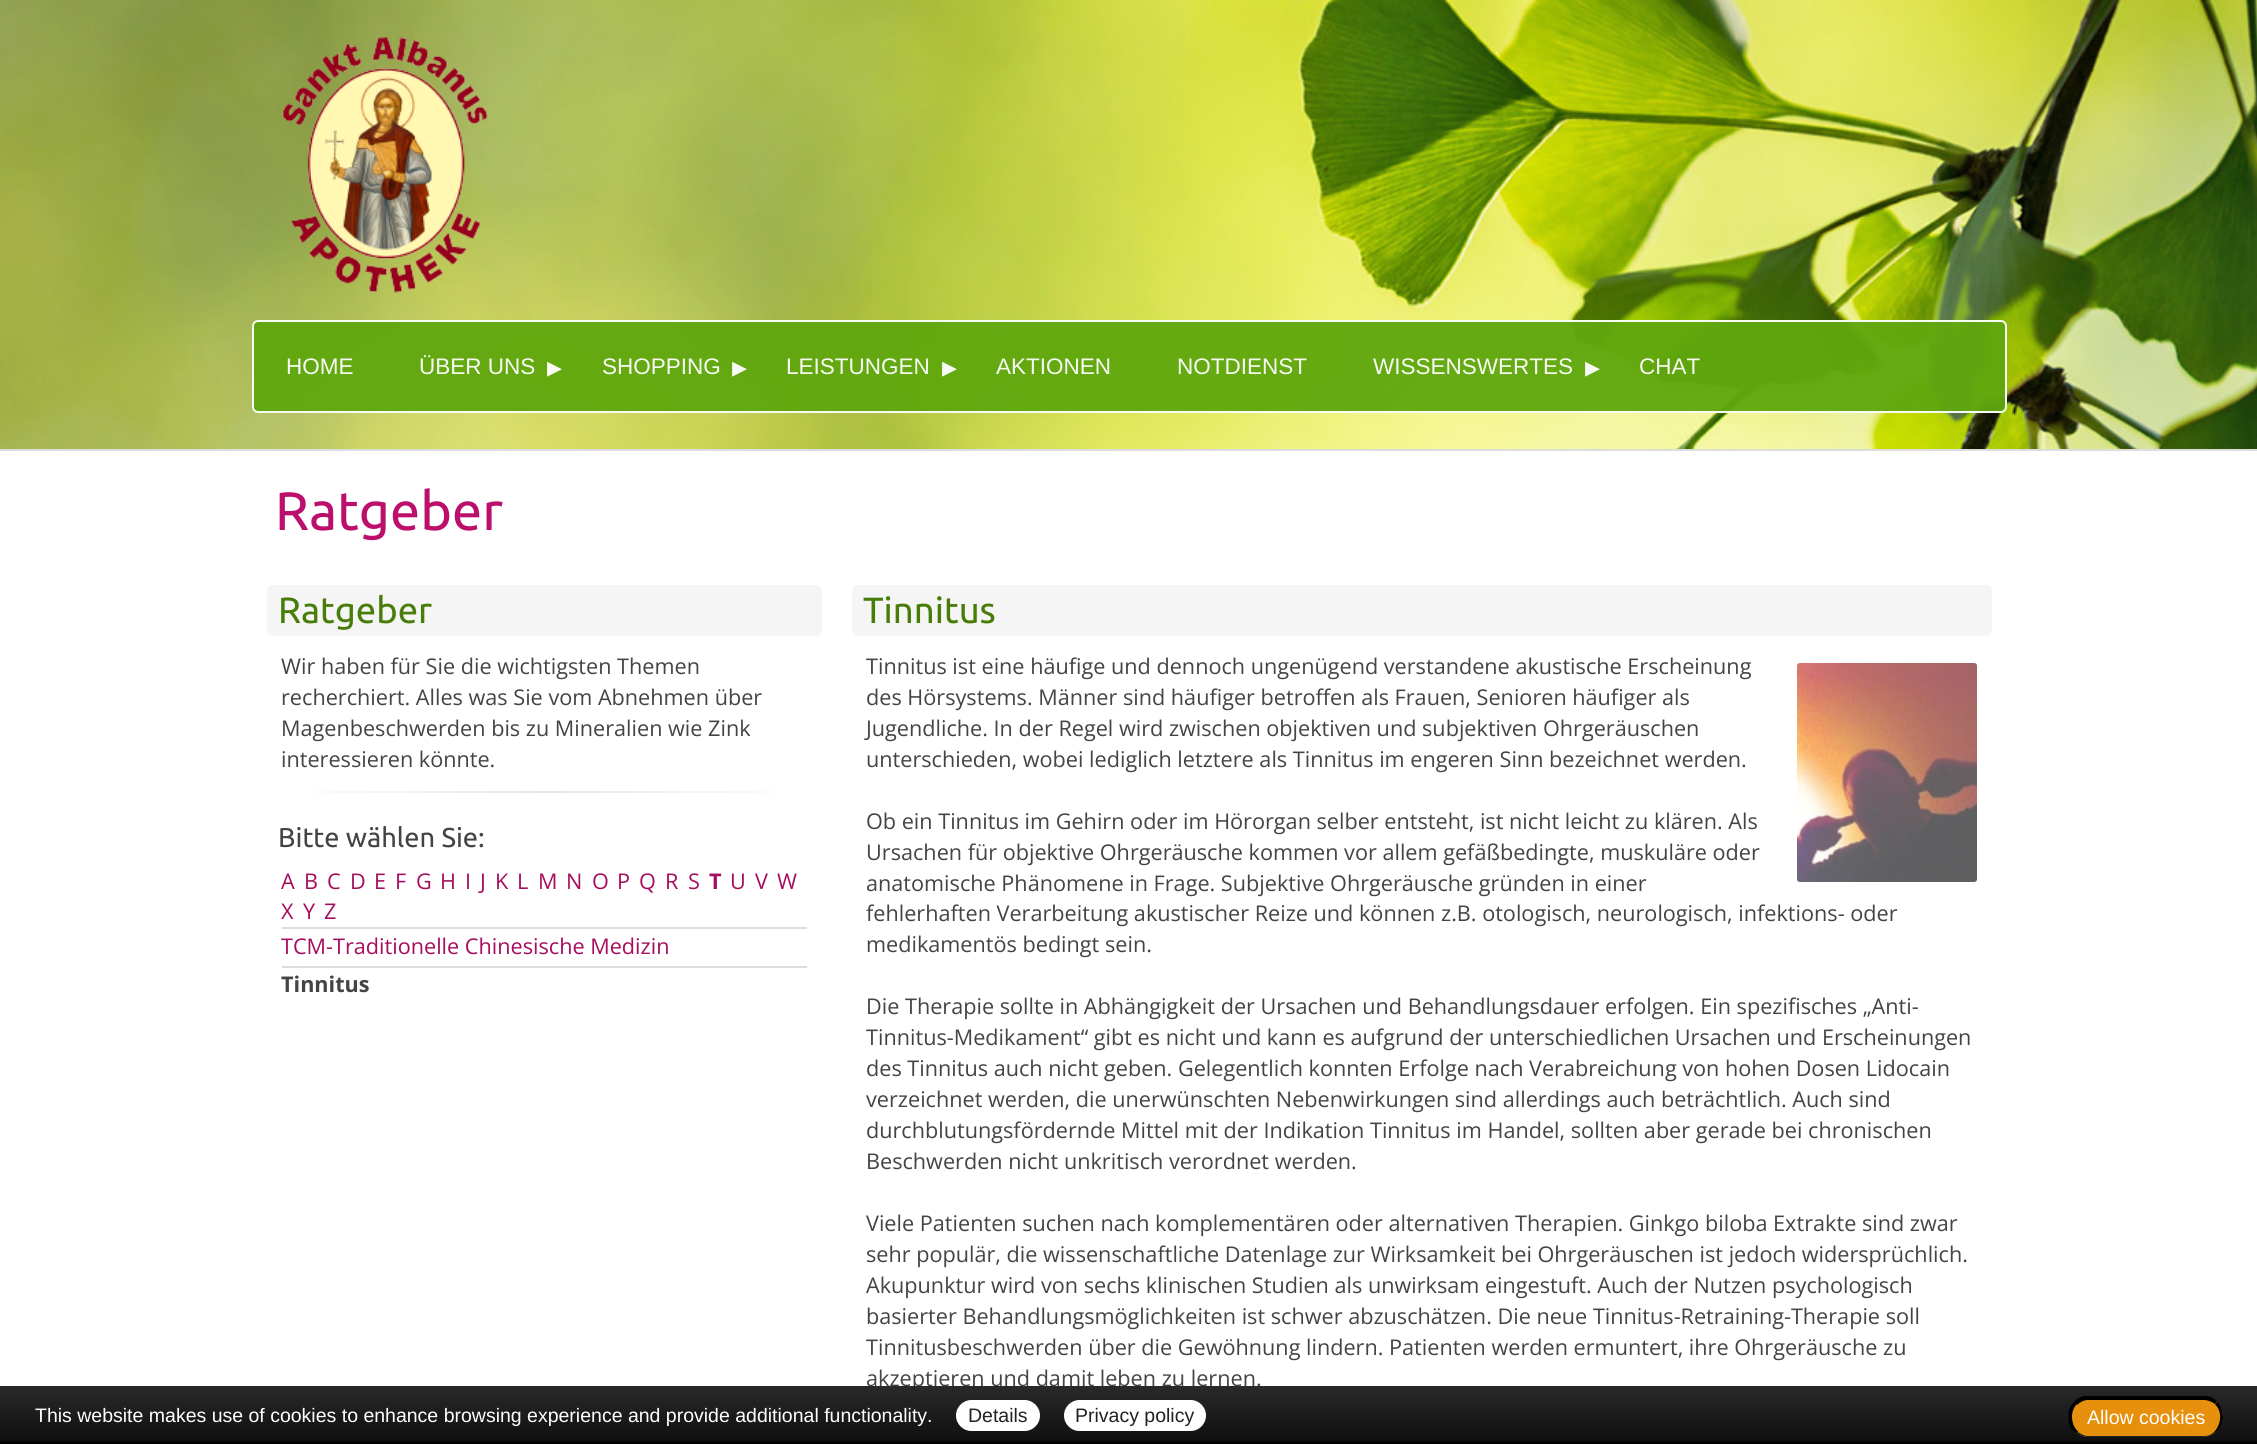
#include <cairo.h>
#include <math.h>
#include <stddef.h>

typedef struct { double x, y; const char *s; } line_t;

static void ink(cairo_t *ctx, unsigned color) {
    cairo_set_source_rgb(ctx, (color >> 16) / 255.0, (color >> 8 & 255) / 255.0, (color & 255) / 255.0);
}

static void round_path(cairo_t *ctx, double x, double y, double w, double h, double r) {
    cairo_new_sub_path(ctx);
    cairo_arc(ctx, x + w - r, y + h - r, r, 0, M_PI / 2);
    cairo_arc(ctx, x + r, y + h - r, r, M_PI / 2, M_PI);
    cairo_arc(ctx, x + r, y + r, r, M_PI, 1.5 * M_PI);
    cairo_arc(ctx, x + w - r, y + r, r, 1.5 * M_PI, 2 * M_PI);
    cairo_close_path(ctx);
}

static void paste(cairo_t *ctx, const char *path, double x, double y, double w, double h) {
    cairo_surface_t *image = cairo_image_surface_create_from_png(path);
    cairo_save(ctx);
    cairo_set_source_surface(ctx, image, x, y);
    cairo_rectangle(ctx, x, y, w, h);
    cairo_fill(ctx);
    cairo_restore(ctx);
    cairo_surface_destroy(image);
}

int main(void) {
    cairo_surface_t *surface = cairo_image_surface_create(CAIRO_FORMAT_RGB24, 2257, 1444);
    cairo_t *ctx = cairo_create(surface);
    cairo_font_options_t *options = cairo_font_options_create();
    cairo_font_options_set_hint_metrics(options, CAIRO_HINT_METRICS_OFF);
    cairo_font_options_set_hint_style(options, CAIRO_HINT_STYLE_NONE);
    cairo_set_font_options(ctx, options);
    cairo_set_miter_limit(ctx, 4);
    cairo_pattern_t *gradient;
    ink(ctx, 0xFFFFFF);
    cairo_paint(ctx);
    paste(ctx, "media/1.png", 0, 0, 2257, 449);
    ink(ctx, 0xDDDDDD);
    cairo_rectangle(ctx, 0, 449, 2257, 2);
    cairo_fill(ctx);
    paste(ctx, "media/2.png", 282, 37, 206, 256);
    cairo_set_source_rgba(ctx, 0.376, 0.655, 0.055, 0.95);
    round_path(ctx, 252, 320, 1755, 93, 6);
    cairo_fill(ctx);
    round_path(ctx, 253, 321, 1753, 91, 5);
    cairo_set_source_rgba(ctx, 1, 1, 1, 0.95);
    cairo_stroke(ctx);
    cairo_select_font_face(ctx, "Liberation Sans", CAIRO_FONT_SLANT_NORMAL, CAIRO_FONT_WEIGHT_NORMAL);
    cairo_set_font_size(ctx, 22.5);
    ink(ctx, 0xF7FBF3);
    cairo_move_to(ctx, 286, 374);
    cairo_show_text(ctx, "HOME");
    cairo_move_to(ctx, 419, 374);
    cairo_show_text(ctx, "ÜBER UNS");
    cairo_select_font_face(ctx, "DejaVu Sans", CAIRO_FONT_SLANT_NORMAL, CAIRO_FONT_WEIGHT_NORMAL);
    cairo_set_font_size(ctx, 30);
    ink(ctx, 0xFDFDF7);
    cairo_move_to(ctx, 547, 377);
    cairo_show_text(ctx, "▸");
    cairo_select_font_face(ctx, "Liberation Sans", CAIRO_FONT_SLANT_NORMAL, CAIRO_FONT_WEIGHT_NORMAL);
    cairo_set_font_size(ctx, 22.5);
    ink(ctx, 0xF7FBF3);
    cairo_move_to(ctx, 602, 374);
    cairo_show_text(ctx, "SHOPPING");
    cairo_select_font_face(ctx, "DejaVu Sans", CAIRO_FONT_SLANT_NORMAL, CAIRO_FONT_WEIGHT_NORMAL);
    cairo_set_font_size(ctx, 30);
    cairo_move_to(ctx, 732, 377);
    cairo_show_text(ctx, "▸");
    cairo_select_font_face(ctx, "Liberation Sans", CAIRO_FONT_SLANT_NORMAL, CAIRO_FONT_WEIGHT_NORMAL);
    cairo_set_font_size(ctx, 22.5);
    cairo_move_to(ctx, 786, 374);
    cairo_show_text(ctx, "LEISTUNGEN");
    cairo_select_font_face(ctx, "DejaVu Sans", CAIRO_FONT_SLANT_NORMAL, CAIRO_FONT_WEIGHT_NORMAL);
    cairo_set_font_size(ctx, 30);
    cairo_move_to(ctx, 942, 377);
    cairo_show_text(ctx, "▸");
    cairo_select_font_face(ctx, "Liberation Sans", CAIRO_FONT_SLANT_NORMAL, CAIRO_FONT_WEIGHT_NORMAL);
    cairo_set_font_size(ctx, 22.5);
    {
        static const line_t items[] = {
            {996, 374, "AKTIONEN"},
            {1177, 374, "NOTDIENST"},
            {1373, 374, "WISSENSWERTES"},
        };
        for (size_t i = 0; i < sizeof items / sizeof *items; i++) {
            cairo_move_to(ctx, items[i].x, items[i].y);
            cairo_show_text(ctx, items[i].s);
        }
    }
    cairo_select_font_face(ctx, "DejaVu Sans", CAIRO_FONT_SLANT_NORMAL, CAIRO_FONT_WEIGHT_NORMAL);
    cairo_set_font_size(ctx, 30);
    cairo_move_to(ctx, 1585, 377);
    cairo_show_text(ctx, "▸");
    cairo_select_font_face(ctx, "Liberation Sans", CAIRO_FONT_SLANT_NORMAL, CAIRO_FONT_WEIGHT_NORMAL);
    cairo_set_font_size(ctx, 22.5);
    cairo_move_to(ctx, 1639, 374);
    cairo_show_text(ctx, "CHAT");
    cairo_select_font_face(ctx, "Ubuntu", CAIRO_FONT_SLANT_NORMAL, CAIRO_FONT_WEIGHT_NORMAL);
    cairo_set_font_size(ctx, 54);
    ink(ctx, 0xBB0F6B);
    cairo_move_to(ctx, 275, 530);
    cairo_show_text(ctx, "Ratgeber");
    ink(ctx, 0xF5F5F5);
    round_path(ctx, 267, 585, 555, 51, 6);
    cairo_fill(ctx);
    cairo_set_font_size(ctx, 36.5);
    ink(ctx, 0x487D0A);
    cairo_move_to(ctx, 278, 623);
    cairo_show_text(ctx, "Ratgeber");
    cairo_select_font_face(ctx, "Open Sans", CAIRO_FONT_SLANT_NORMAL, CAIRO_FONT_WEIGHT_NORMAL);
    cairo_set_font_size(ctx, 21.65);
    ink(ctx, 0x444444);
    {
        static const line_t items[] = {
            {281, 674, "Wir haben für Sie die wichtigsten Themen"},
            {281, 705, "recherchiert. Alles was Sie vom Abnehmen über"},
            {281, 736, "Magenbeschwerden bis zu Mineralien wie Zink"},
            {281, 767, "interessieren könnte."},
        };
        for (size_t i = 0; i < sizeof items / sizeof *items; i++) {
            cairo_move_to(ctx, items[i].x, items[i].y);
            cairo_show_text(ctx, items[i].s);
        }
    }
    gradient = cairo_pattern_create_linear(282, 791, 807, 791);
    cairo_pattern_add_color_stop_rgba(gradient, 0, 1, 1, 1, 1);
    cairo_pattern_add_color_stop_rgba(gradient, 0.5, 0.902, 0.902, 0.902, 1);
    cairo_pattern_add_color_stop_rgba(gradient, 1, 1, 1, 1, 1);
    cairo_set_source(ctx, gradient);
    cairo_pattern_destroy(gradient);
    cairo_rectangle(ctx, 308, 791, 473, 2);
    cairo_fill(ctx);
    cairo_select_font_face(ctx, "Ubuntu", CAIRO_FONT_SLANT_NORMAL, CAIRO_FONT_WEIGHT_NORMAL);
    cairo_set_font_size(ctx, 27.25);
    ink(ctx, 0x444444);
    cairo_move_to(ctx, 278, 847);
    cairo_show_text(ctx, "Bitte wählen Sie:");
    cairo_select_font_face(ctx, "Open Sans", CAIRO_FONT_SLANT_NORMAL, CAIRO_FONT_WEIGHT_NORMAL);
    cairo_set_font_size(ctx, 21.65);
    ink(ctx, 0xA50D5E);
    {
        static const line_t items[] = {
            {281, 889, "A"},
            {304, 889, "B"},
            {327, 889, "C"},
            {350, 889, "D"},
            {374, 889, "E"},
            {395, 889, "F"},
            {416, 889, "G"},
            {440, 889, "H"},
            {465, 889, "I"},
            {480, 889, "J"},
            {495, 889, "K"},
            {517, 889, "L"},
            {538, 889, "M"},
            {566, 889, "N"},
            {592, 889, "O"},
            {617, 889, "P"},
            {639, 889, "Q"},
            {665, 889, "R"},
            {688, 889, "S"},
        };
        for (size_t i = 0; i < sizeof items / sizeof *items; i++) {
            cairo_move_to(ctx, items[i].x, items[i].y);
            cairo_show_text(ctx, items[i].s);
        }
    }
    cairo_select_font_face(ctx, "Open Sans", CAIRO_FONT_SLANT_NORMAL, CAIRO_FONT_WEIGHT_BOLD);
    cairo_move_to(ctx, 709, 889);
    cairo_show_text(ctx, "T");
    cairo_select_font_face(ctx, "Open Sans", CAIRO_FONT_SLANT_NORMAL, CAIRO_FONT_WEIGHT_NORMAL);
    {
        static const line_t items[] = {
            {730, 889, "U"},
            {755, 889, "V"},
            {777, 889, "W"},
            {281, 919, "X"},
            {303, 919, "Y"},
            {324, 919, "Z"},
        };
        for (size_t i = 0; i < sizeof items / sizeof *items; i++) {
            cairo_move_to(ctx, items[i].x, items[i].y);
            cairo_show_text(ctx, items[i].s);
        }
    }
    ink(ctx, 0xDDDDDD);
    cairo_rectangle(ctx, 282, 927, 525, 2);
    cairo_fill(ctx);
    ink(ctx, 0xA50D5E);
    cairo_move_to(ctx, 281, 954);
    cairo_show_text(ctx, "TCM-Traditionelle Chinesische Medizin");
    ink(ctx, 0xDDDDDD);
    cairo_rectangle(ctx, 282, 966, 525, 2);
    cairo_fill(ctx);
    cairo_select_font_face(ctx, "Open Sans", CAIRO_FONT_SLANT_NORMAL, CAIRO_FONT_WEIGHT_BOLD);
    ink(ctx, 0x444444);
    cairo_move_to(ctx, 281, 992);
    cairo_show_text(ctx, "Tinnitus");
    ink(ctx, 0xF5F5F5);
    round_path(ctx, 852, 585, 1140, 51, 6);
    cairo_fill(ctx);
    cairo_select_font_face(ctx, "Ubuntu", CAIRO_FONT_SLANT_NORMAL, CAIRO_FONT_WEIGHT_NORMAL);
    cairo_set_font_size(ctx, 36.5);
    ink(ctx, 0x487D0A);
    cairo_move_to(ctx, 863, 623);
    cairo_show_text(ctx, "Tinnitus");
    cairo_select_font_face(ctx, "Open Sans", CAIRO_FONT_SLANT_NORMAL, CAIRO_FONT_WEIGHT_NORMAL);
    cairo_set_font_size(ctx, 21.65);
    ink(ctx, 0x444444);
    cairo_move_to(ctx, 866, 674);
    cairo_show_text(ctx, "Tinnitus ist eine häufige und dennoch ungenügend verstandene akustische Erscheinung");
    paste(ctx, "media/3.png", 1797, 663, 180, 219);
    {
        static const line_t items[] = {
            {866, 705, "des Hörsystems. Männer sind häufiger betroffen als Frauen, Senioren häufiger als"},
            {866, 736, "Jugendliche. In der Regel wird zwischen objektiven und subjektiven Ohrgeräuschen"},
            {866, 767, "unterschieden, wobei lediglich letztere als Tinnitus im engeren Sinn bezeichnet werden."},
            {866, 829, "Ob ein Tinnitus im Gehirn oder im Hörorgan selber entsteht, ist nicht leicht zu klären. Als"},
            {866, 860, "Ursachen für objektive Ohrgeräusche kommen vor allem gefäßbedingte, muskuläre oder"},
            {866, 891, "anatomische Phänomene in Frage. Subjektive Ohrgeräusche gründen in einer"},
            {866, 921, "fehlerhaften Verarbeitung akustischer Reize und können z.B. otologisch, neurologisch, infektions- oder"},
            {866, 952, "medikamentös bedingt sein."},
            {866, 1014, "Die Therapie sollte in Abhängigkeit der Ursachen und Behandlungsdauer erfolgen. Ein spezifisches „Anti-"},
            {866, 1045, "Tinnitus-Medikament“ gibt es nicht und kann es aufgrund der unterschiedlichen Ursachen und Erscheinungen"},
            {866, 1076, "des Tinnitus auch nicht geben. Gelegentlich konnten Erfolge nach Verabreichung von hohen Dosen Lidocain"},
            {866, 1107, "verzeichnet werden, die unerwünschten Nebenwirkungen sind allerdings auch beträchtlich. Auch sind"},
            {866, 1138, "durchblutungsfördernde Mittel mit der Indikation Tinnitus im Handel, sollten aber gerade bei chronischen"},
            {866, 1169, "Beschwerden nicht unkritisch verordnet werden."},
            {866, 1231, "Viele Patienten suchen nach komplementären oder alternativen Therapien. Ginkgo biloba Extrakte sind zwar"},
            {866, 1262, "sehr populär, die wissenschaftliche Datenlage zur Wirksamkeit bei Ohrgeräuschen ist jedoch widersprüchlich."},
            {866, 1293, "Akupunktur wird von sechs klinischen Studien als unwirksam eingestuft. Auch der Nutzen psychologisch"},
            {866, 1324, "basierter Behandlungsmöglichkeiten ist schwer abzuschätzen. Die neue Tinnitus-Retraining-Therapie soll"},
            {866, 1355, "Tinnitusbeschwerden über die Gewöhnung lindern. Patienten werden ermuntert, ihre Ohrgeräusche zu"},
            {866, 1386, "akzeptieren und damit leben zu lernen."},
        };
        for (size_t i = 0; i < sizeof items / sizeof *items; i++) {
            cairo_move_to(ctx, items[i].x, items[i].y);
            cairo_show_text(ctx, items[i].s);
        }
    }
    ink(ctx, 0x111111);
    cairo_rectangle(ctx, 0, 1442, 2257, 2);
    cairo_fill(ctx);
    ink(ctx, 0xCCCCCC);
    cairo_rectangle(ctx, 0, 1440, 2257, 2);
    cairo_fill(ctx);
    gradient = cairo_pattern_create_linear(1129, 1386, 1129, 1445);
    cairo_pattern_add_color_stop_rgba(gradient, 0, 0.118, 0.118, 0.118, 0.95);
    cairo_pattern_add_color_stop_rgba(gradient, 1, 0, 0, 0, 0.95);
    cairo_set_source(ctx, gradient);
    cairo_pattern_destroy(gradient);
    cairo_rectangle(ctx, 0, 1386, 2257, 58);
    cairo_fill(ctx);
    cairo_select_font_face(ctx, "Liberation Sans", CAIRO_FONT_SLANT_NORMAL, CAIRO_FONT_WEIGHT_NORMAL);
    cairo_set_font_size(ctx, 19.5);
    ink(ctx, 0xFFFFFF);
    cairo_move_to(ctx, 35, 1422);
    cairo_show_text(ctx, "This website makes use of cookies to enhance browsing experience and provide additional functionality.");
    round_path(ctx, 956, 1400, 84, 31, 15.5);
    cairo_fill(ctx);
    ink(ctx, 0x222222);
    cairo_move_to(ctx, 968, 1422);
    cairo_show_text(ctx, "Details");
    ink(ctx, 0xFFFFFF);
    round_path(ctx, 1064, 1400, 142, 31, 15.5);
    cairo_fill(ctx);
    ink(ctx, 0x222222);
    cairo_move_to(ctx, 1075, 1422);
    cairo_show_text(ctx, "Privacy policy");
    ink(ctx, 0xE6900E);
    round_path(ctx, 2069, 1397, 154, 40, 20);
    cairo_fill(ctx);
    ink(ctx, 0x000000);
    cairo_new_path(ctx);
    cairo_move_to(ctx, 2088, 1400);
    cairo_curve_to(ctx, 2084, 1400, 2080, 1402, 2077, 1405);
    cairo_line_to(ctx, 2074, 1402);
    cairo_curve_to(ctx, 2076, 1399, 2080, 1397, 2084, 1396);
    cairo_line_to(ctx, 2208, 1396);
    cairo_curve_to(ctx, 2212, 1397, 2215, 1399, 2217, 1402);
    cairo_line_to(ctx, 2215, 1404);
    cairo_curve_to(ctx, 2212, 1402, 2208, 1400, 2204, 1400);
    cairo_close_path(ctx);
    cairo_fill(ctx);
    cairo_new_path(ctx);
    cairo_move_to(ctx, 2223, 1418);
    cairo_curve_to(ctx, 2223, 1412, 2221.5, 1406.5, 2217.5, 1402);
    cairo_line_to(ctx, 2215, 1404.5);
    cairo_curve_to(ctx, 2223, 1411.5, 2221, 1425.5, 2213.5, 1432.5);
    cairo_line_to(ctx, 2215, 1433);
    cairo_curve_to(ctx, 2220, 1429.5, 2223, 1424, 2223, 1418);
    cairo_close_path(ctx);
    cairo_fill(ctx);
    ink(ctx, 0x222222);
    cairo_new_path(ctx);
    cairo_move_to(ctx, 2088, 1437);
    cairo_line_to(ctx, 2204, 1437);
    cairo_curve_to(ctx, 2208, 1437, 2212, 1436, 2215, 1433);
    cairo_line_to(ctx, 2214, 1432);
    cairo_curve_to(ctx, 2211, 1435, 2208, 1436, 2204, 1436);
    cairo_line_to(ctx, 2088, 1436);
    cairo_curve_to(ctx, 2084, 1436, 2081, 1434, 2078, 1432);
    cairo_line_to(ctx, 2076, 1433);
    cairo_curve_to(ctx, 2079, 1436, 2084, 1437, 2088, 1437);
    cairo_close_path(ctx);
    cairo_fill(ctx);
    ink(ctx, 0x000000);
    cairo_new_path(ctx);
    cairo_move_to(ctx, 2068.5, 1411.5);
    cairo_curve_to(ctx, 2069.5, 1408, 2071.5, 1404.5, 2074, 1402);
    cairo_line_to(ctx, 2076.5, 1404.5);
    cairo_curve_to(ctx, 2069.5, 1412, 2071, 1425.5, 2078.5, 1432);
    cairo_line_to(ctx, 2076, 1433);
    cairo_curve_to(ctx, 2072.5, 1430.5, 2069.5, 1426.5, 2068.5, 1422);
    cairo_close_path(ctx);
    cairo_fill(ctx);
    ink(ctx, 0xFFFFFF);
    cairo_move_to(ctx, 2087, 1424);
    cairo_show_text(ctx, "Allow cookies");
    cairo_surface_write_to_png(surface, "image.png");
    cairo_font_options_destroy(options);
    cairo_destroy(ctx);
    cairo_surface_destroy(surface);
    return 0;
}
